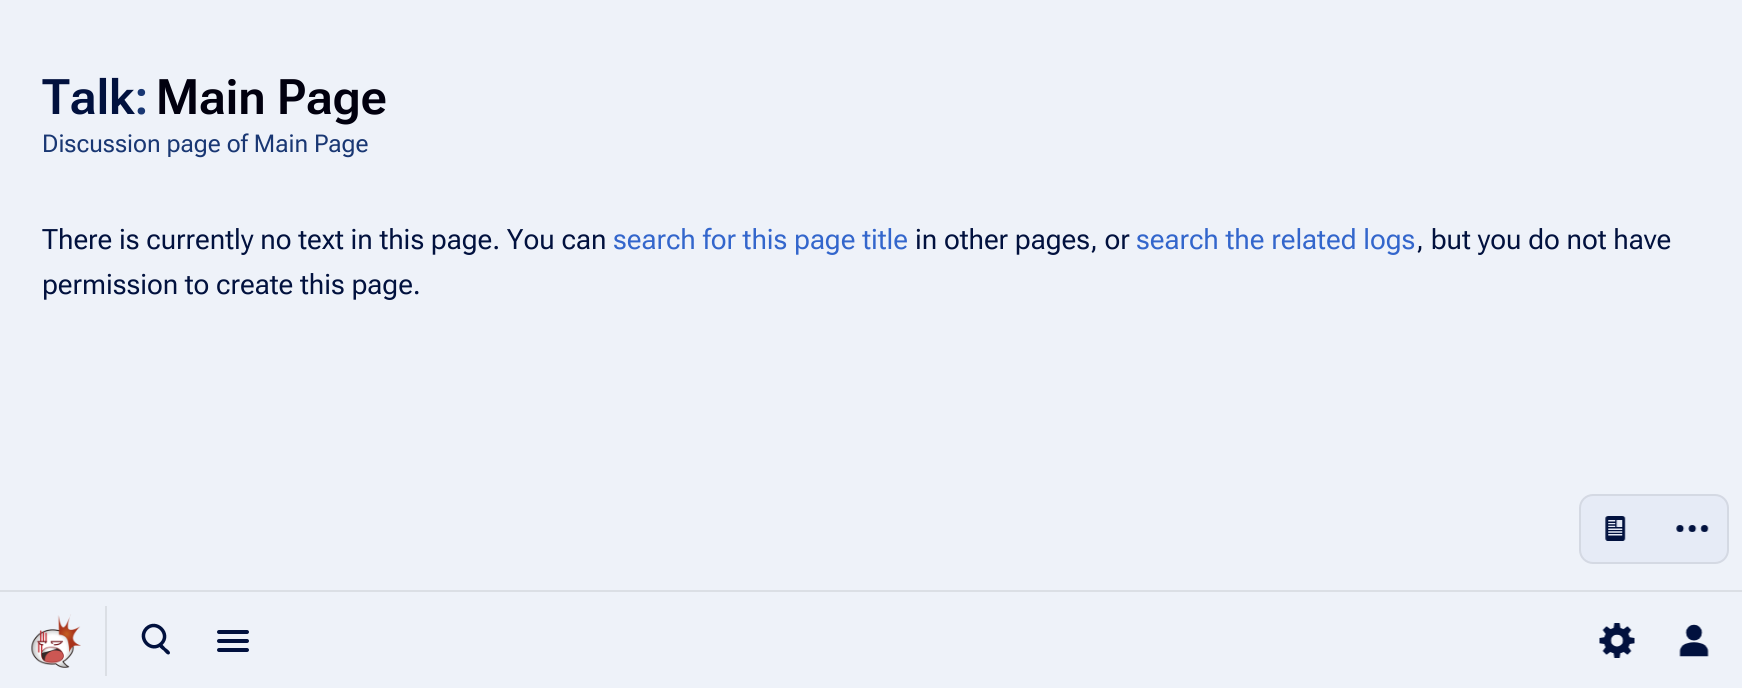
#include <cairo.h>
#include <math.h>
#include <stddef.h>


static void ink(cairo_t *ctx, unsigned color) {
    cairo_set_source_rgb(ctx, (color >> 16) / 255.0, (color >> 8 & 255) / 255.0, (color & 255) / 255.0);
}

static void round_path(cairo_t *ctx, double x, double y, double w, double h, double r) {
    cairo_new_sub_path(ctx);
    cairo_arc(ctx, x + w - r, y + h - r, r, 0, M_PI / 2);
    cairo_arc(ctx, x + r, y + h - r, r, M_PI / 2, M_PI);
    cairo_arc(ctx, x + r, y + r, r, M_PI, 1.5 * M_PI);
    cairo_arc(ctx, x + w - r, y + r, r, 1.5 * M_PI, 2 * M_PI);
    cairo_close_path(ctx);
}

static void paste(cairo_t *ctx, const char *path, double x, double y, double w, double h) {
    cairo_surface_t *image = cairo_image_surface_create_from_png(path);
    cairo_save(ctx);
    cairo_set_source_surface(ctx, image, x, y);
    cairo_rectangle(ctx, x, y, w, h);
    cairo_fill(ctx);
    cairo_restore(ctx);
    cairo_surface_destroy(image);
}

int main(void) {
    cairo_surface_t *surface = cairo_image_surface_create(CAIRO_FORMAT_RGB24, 1742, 688);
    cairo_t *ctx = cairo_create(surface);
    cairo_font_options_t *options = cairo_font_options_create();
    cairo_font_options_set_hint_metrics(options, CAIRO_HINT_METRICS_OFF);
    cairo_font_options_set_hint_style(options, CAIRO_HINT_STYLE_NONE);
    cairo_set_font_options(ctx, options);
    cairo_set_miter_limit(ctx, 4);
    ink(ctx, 0xEEF2F9);
    cairo_paint(ctx);
    cairo_select_font_face(ctx, "Roboto Flex SemiBold", CAIRO_FONT_SLANT_NORMAL, CAIRO_FONT_WEIGHT_NORMAL);
    cairo_set_font_size(ctx, 49);
    ink(ctx, 0x01113E);
    cairo_move_to(ctx, 42, 114);
    cairo_show_text(ctx, "Talk");
    ink(ctx, 0x193773);
    cairo_move_to(ctx, 134, 114);
    cairo_show_text(ctx, ":");
    ink(ctx, 0x01000F);
    cairo_move_to(ctx, 156, 114);
    cairo_show_text(ctx, "Main Page");
    cairo_select_font_face(ctx, "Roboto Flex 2", CAIRO_FONT_SLANT_NORMAL, CAIRO_FONT_WEIGHT_NORMAL);
    cairo_set_font_size(ctx, 24.5);
    ink(ctx, 0x193773);
    cairo_move_to(ctx, 42, 152);
    cairo_show_text(ctx, "Discussion page of Main Page");
    ink(ctx, 0xE6EBF6);
    round_path(ctx, 1579, 494, 150, 70, 14);
    cairo_fill(ctx);
    round_path(ctx, 1580, 495, 148, 68, 13);
    cairo_set_source_rgba(ctx, 0, 0, 0, 0.08);
    cairo_stroke(ctx);
    paste(ctx, "media/1.png", 1605, 516, 21, 25);
    paste(ctx, "media/2.png", 1676, 525, 33, 7);
    cairo_select_font_face(ctx, "Roboto Flex", CAIRO_FONT_SLANT_NORMAL, CAIRO_FONT_WEIGHT_NORMAL);
    cairo_set_font_size(ctx, 28);
    ink(ctx, 0x01113E);
    cairo_move_to(ctx, 42, 249);
    cairo_show_text(ctx, "There is currently no text in this page. You can");
    ink(ctx, 0x3366CC);
    cairo_move_to(ctx, 613, 249);
    cairo_show_text(ctx, "search for this page title");
    ink(ctx, 0x01113E);
    cairo_move_to(ctx, 915, 249);
    cairo_show_text(ctx, "in other pages, or");
    ink(ctx, 0x3366CC);
    cairo_move_to(ctx, 1136, 249);
    cairo_show_text(ctx, "search the related logs");
    ink(ctx, 0x01113E);
    cairo_move_to(ctx, 1416, 249);
    cairo_show_text(ctx, ", but you do not have");
    cairo_move_to(ctx, 42, 294);
    cairo_show_text(ctx, "permission to create this page.");
    ink(ctx, 0xDBDFE5);
    cairo_rectangle(ctx, 0, 590, 1742, 2);
    cairo_fill(ctx);
    cairo_rectangle(ctx, 105, 606, 2, 70);
    cairo_fill(ctx);
    paste(ctx, "media/3.png", 31, 614, 50, 54);
    ink(ctx, 0x01113E);
    cairo_new_path(ctx);
    cairo_move_to(ctx, 159.5, 644.5);
    cairo_curve_to(ctx, 161.5, 642.5, 164.5, 647, 165.5, 648);
    cairo_curve_to(ctx, 167, 649, 171.5, 652, 169.5, 654);
    cairo_curve_to(ctx, 167.5, 656, 164.5, 651.5, 163.5, 650.5);
    cairo_curve_to(ctx, 162, 649.5, 157.5, 646.5, 159.5, 644.5);
    cairo_close_path(ctx);
    cairo_fill(ctx);
    cairo_new_path(ctx);
    cairo_move_to(ctx, 146.5, 628.5);
    cairo_curve_to(ctx, 156.5, 619, 171, 634, 161.5, 643.5);
    cairo_curve_to(ctx, 151.5, 653.5, 137, 638.5, 146.5, 628.5);
    cairo_close_path(ctx);
    cairo_set_line_width(ctx, 3.5);
    cairo_stroke(ctx);
    round_path(ctx, 217, 630, 32, 4, 2);
    cairo_fill(ctx);
    round_path(ctx, 217, 639, 32, 4, 2);
    cairo_fill(ctx);
    round_path(ctx, 217, 648, 32, 4, 2);
    cairo_fill(ctx);
    paste(ctx, "media/4.png", 1599, 623, 36, 35);
    paste(ctx, "media/5.png", 1679, 624, 30, 33);
    cairo_surface_write_to_png(surface, "image.png");
    cairo_font_options_destroy(options);
    cairo_destroy(ctx);
    cairo_surface_destroy(surface);
    return 0;
}
